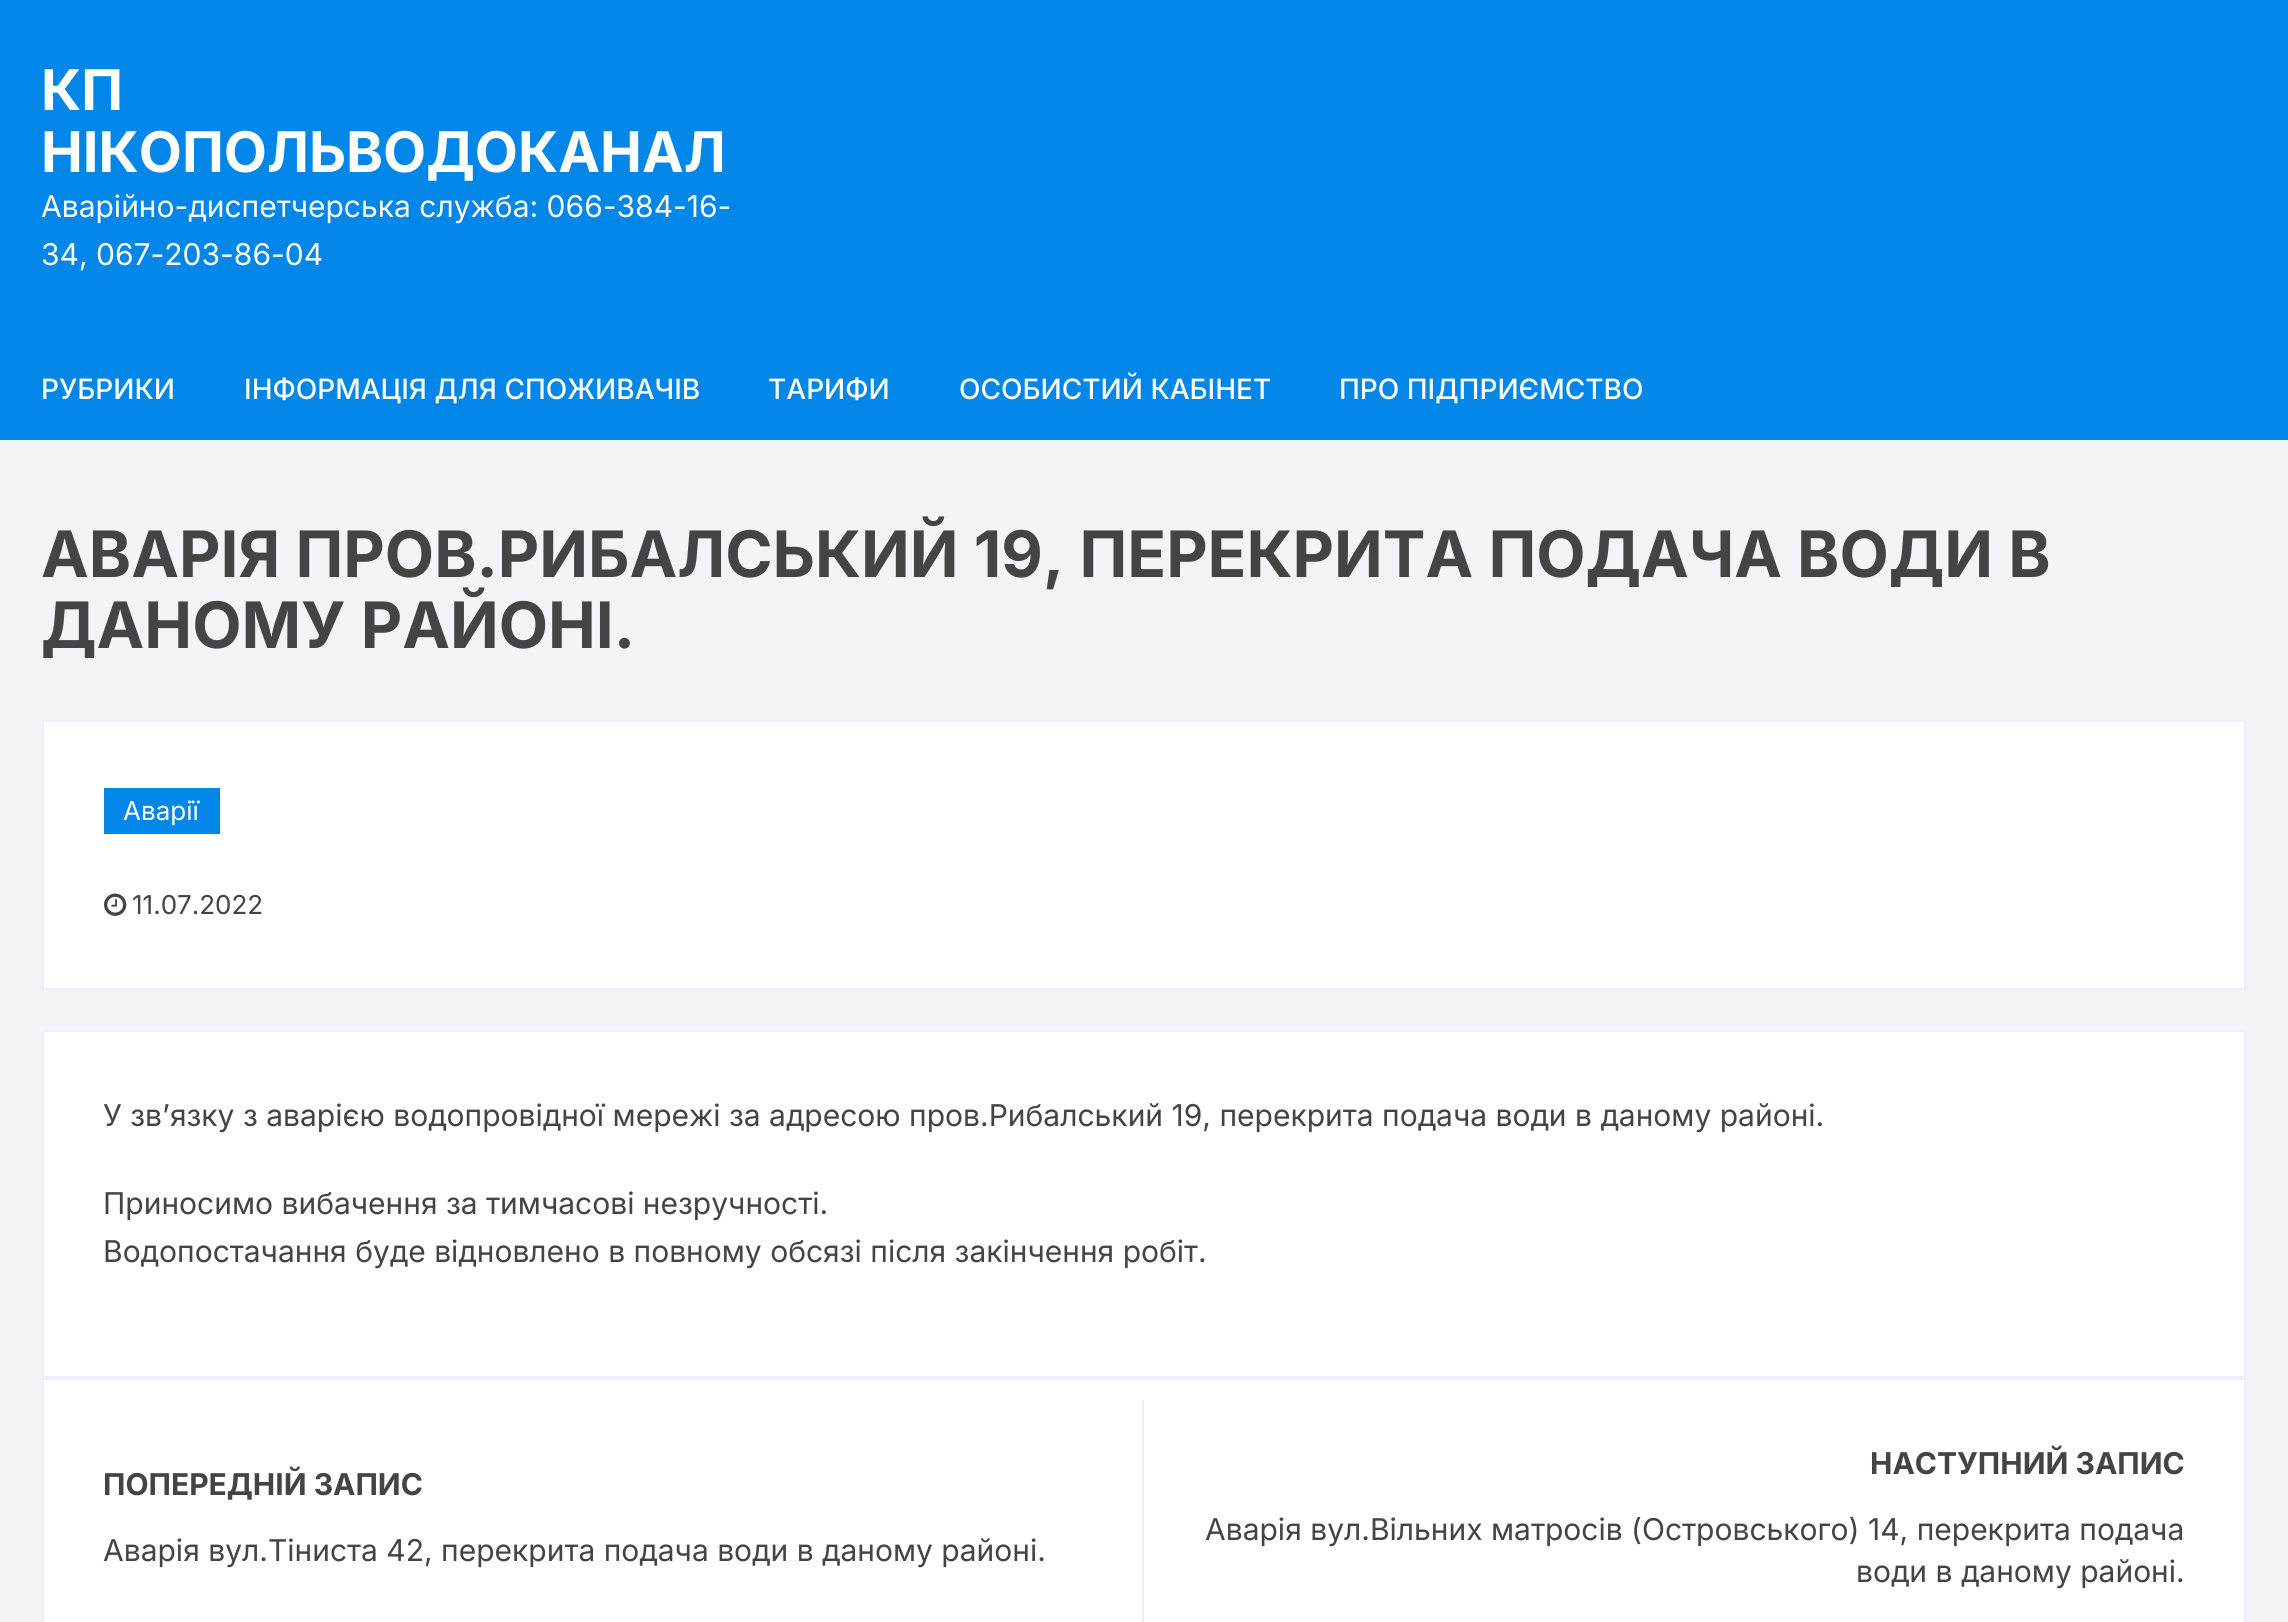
#include <cairo.h>
#include <math.h>
#include <stddef.h>

typedef struct { double x, y; const char *s; } line_t;

static void ink(cairo_t *ctx, unsigned color) {
    cairo_set_source_rgb(ctx, (color >> 16) / 255.0, (color >> 8 & 255) / 255.0, (color & 255) / 255.0);
}

static void paste(cairo_t *ctx, const char *path, double x, double y, double w, double h) {
    cairo_surface_t *image = cairo_image_surface_create_from_png(path);
    cairo_save(ctx);
    cairo_set_source_surface(ctx, image, x, y);
    cairo_rectangle(ctx, x, y, w, h);
    cairo_fill(ctx);
    cairo_restore(ctx);
    cairo_surface_destroy(image);
}

int main(void) {
    cairo_surface_t *surface = cairo_image_surface_create(CAIRO_FORMAT_RGB24, 2288, 1622);
    cairo_t *ctx = cairo_create(surface);
    cairo_font_options_t *options = cairo_font_options_create();
    cairo_font_options_set_hint_metrics(options, CAIRO_HINT_METRICS_OFF);
    cairo_font_options_set_hint_style(options, CAIRO_HINT_STYLE_NONE);
    cairo_set_font_options(ctx, options);
    cairo_set_miter_limit(ctx, 4);
    ink(ctx, 0xF3F4F8);
    cairo_paint(ctx);
    ink(ctx, 0x0286E7);
    cairo_rectangle(ctx, 0, 0, 2288, 440);
    cairo_fill(ctx);
    cairo_select_font_face(ctx, "Inter", CAIRO_FONT_SLANT_NORMAL, CAIRO_FONT_WEIGHT_BOLD);
    cairo_set_font_size(ctx, 56);
    ink(ctx, 0xFFFFFF);
    cairo_move_to(ctx, 41, 110);
    cairo_show_text(ctx, "КП");
    cairo_move_to(ctx, 41, 172);
    cairo_show_text(ctx, "НІКОПОЛЬВОДОКАНАЛ");
    cairo_select_font_face(ctx, "Inter", CAIRO_FONT_SLANT_NORMAL, CAIRO_FONT_WEIGHT_NORMAL);
    cairo_set_font_size(ctx, 30);
    cairo_move_to(ctx, 41, 217);
    cairo_show_text(ctx, "Аварійно-диспетчерська служба: 066-384-16-");
    cairo_move_to(ctx, 41, 265);
    cairo_show_text(ctx, "34, 067-203-86-04");
    cairo_select_font_face(ctx, "Inter Medium", CAIRO_FONT_SLANT_NORMAL, CAIRO_FONT_WEIGHT_NORMAL);
    cairo_set_font_size(ctx, 28);
    {
        static const line_t items[] = {
            {41, 399, "РУБРИКИ"},
            {244, 399, "ІНФОРМАЦІЯ ДЛЯ СПОЖИВАЧІВ"},
            {768, 399, "ТАРИФИ"},
            {959, 399, "ОСОБИСТИЙ КАБІНЕТ"},
            {1339, 399, "ПРО ПІДПРИЄМСТВО"},
        };
        for (size_t i = 0; i < sizeof items / sizeof *items; i++) {
            cairo_move_to(ctx, items[i].x, items[i].y);
            cairo_show_text(ctx, items[i].s);
        }
    }
    cairo_select_font_face(ctx, "Inter", CAIRO_FONT_SLANT_NORMAL, CAIRO_FONT_WEIGHT_BOLD);
    cairo_set_font_size(ctx, 64);
    ink(ctx, 0x444444);
    cairo_move_to(ctx, 41, 577);
    cairo_show_text(ctx, "АВАРІЯ ПРОВ.РИБАЛСЬКИЙ 19, ПЕРЕКРИТА ПОДАЧА ВОДИ В");
    cairo_move_to(ctx, 41, 648);
    cairo_show_text(ctx, "ДАНОМУ РАЙОНІ.");
    ink(ctx, 0xFFFFFF);
    cairo_rectangle(ctx, 43, 721, 2202, 268);
    cairo_fill_preserve(ctx);
    ink(ctx, 0xEEF1FD);
    cairo_stroke(ctx);
    ink(ctx, 0x0286E7);
    cairo_rectangle(ctx, 104, 788, 116, 46);
    cairo_fill(ctx);
    cairo_select_font_face(ctx, "Inter", CAIRO_FONT_SLANT_NORMAL, CAIRO_FONT_WEIGHT_NORMAL);
    cairo_set_font_size(ctx, 26);
    ink(ctx, 0xFFFFFF);
    cairo_move_to(ctx, 123, 820);
    cairo_show_text(ctx, "Аварії");
    paste(ctx, "media/1.png", 104, 893, 23, 23);
    ink(ctx, 0x444444);
    cairo_move_to(ctx, 132, 914);
    cairo_show_text(ctx, "11.07.2022");
    ink(ctx, 0xFFFFFF);
    cairo_rectangle(ctx, 43, 1031, 2202, 346);
    cairo_fill_preserve(ctx);
    ink(ctx, 0xEEF1FD);
    cairo_stroke(ctx);
    cairo_set_font_size(ctx, 30);
    ink(ctx, 0x444444);
    {
        static const line_t items[] = {
            {103, 1126, "У зв’язку з аварією водопровідної мережі за адресою пров.Рибалський 19, перекрита подача води в даному районі."},
            {103, 1214, "Приносимо вибачення за тимчасові незручності."},
            {103, 1262, "Водопостачання буде відновлено в повному обсязі після закінчення робіт."},
        };
        for (size_t i = 0; i < sizeof items / sizeof *items; i++) {
            cairo_move_to(ctx, items[i].x, items[i].y);
            cairo_show_text(ctx, items[i].s);
        }
    }
    ink(ctx, 0xFFFFFF);
    cairo_rectangle(ctx, 43, 1379, 2202, 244);
    cairo_fill_preserve(ctx);
    ink(ctx, 0xEEF1FD);
    cairo_stroke(ctx);
    ink(ctx, 0xECECEC);
    cairo_rectangle(ctx, 1142, 1400, 2, 222);
    cairo_fill(ctx);
    cairo_select_font_face(ctx, "Inter", CAIRO_FONT_SLANT_NORMAL, CAIRO_FONT_WEIGHT_BOLD);
    ink(ctx, 0x444444);
    cairo_move_to(ctx, 103, 1495);
    cairo_show_text(ctx, "ПОПЕРЕДНІЙ ЗАПИС");
    cairo_select_font_face(ctx, "Inter", CAIRO_FONT_SLANT_NORMAL, CAIRO_FONT_WEIGHT_NORMAL);
    cairo_move_to(ctx, 103, 1561);
    cairo_show_text(ctx, "Аварія вул.Тіниста 42, перекрита подача води в даному районі.");
    cairo_select_font_face(ctx, "Inter", CAIRO_FONT_SLANT_NORMAL, CAIRO_FONT_WEIGHT_BOLD);
    cairo_move_to(ctx, 1870, 1474);
    cairo_show_text(ctx, "НАСТУПНИЙ ЗАПИС");
    cairo_select_font_face(ctx, "Inter", CAIRO_FONT_SLANT_NORMAL, CAIRO_FONT_WEIGHT_NORMAL);
    cairo_move_to(ctx, 1205, 1540);
    cairo_show_text(ctx, "Аварія вул.Вільних матросів (Островського) 14, перекрита подача");
    cairo_move_to(ctx, 1856, 1582);
    cairo_show_text(ctx, "води в даному районі.");
    cairo_surface_write_to_png(surface, "image.png");
    cairo_font_options_destroy(options);
    cairo_destroy(ctx);
    cairo_surface_destroy(surface);
    return 0;
}
